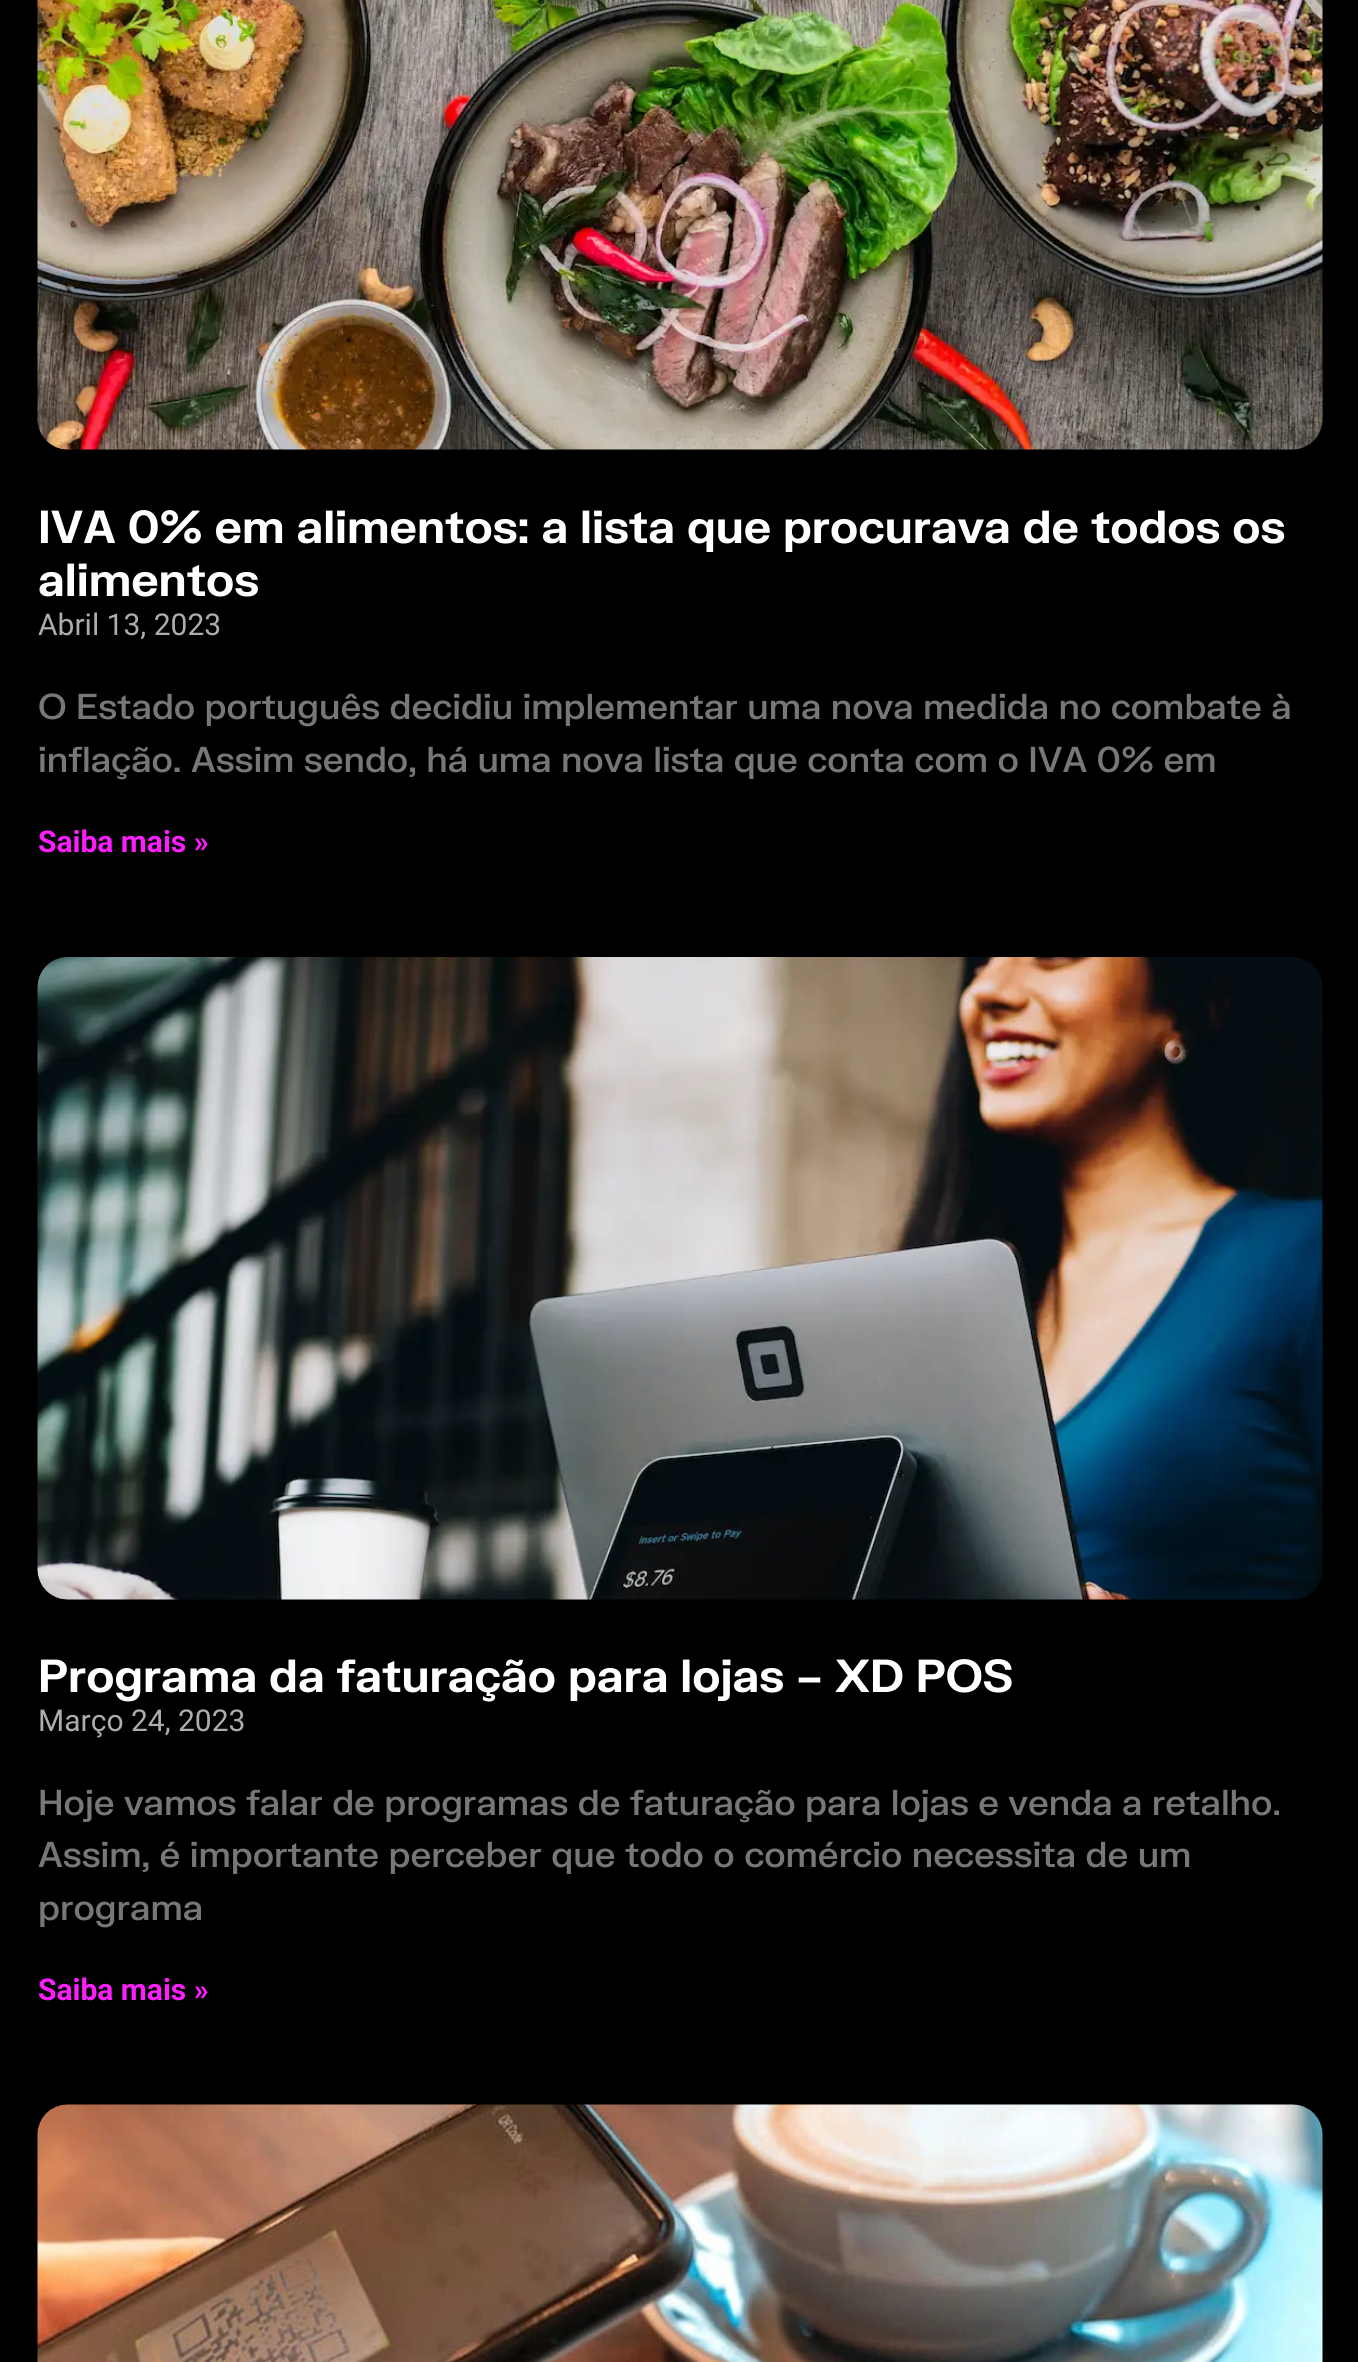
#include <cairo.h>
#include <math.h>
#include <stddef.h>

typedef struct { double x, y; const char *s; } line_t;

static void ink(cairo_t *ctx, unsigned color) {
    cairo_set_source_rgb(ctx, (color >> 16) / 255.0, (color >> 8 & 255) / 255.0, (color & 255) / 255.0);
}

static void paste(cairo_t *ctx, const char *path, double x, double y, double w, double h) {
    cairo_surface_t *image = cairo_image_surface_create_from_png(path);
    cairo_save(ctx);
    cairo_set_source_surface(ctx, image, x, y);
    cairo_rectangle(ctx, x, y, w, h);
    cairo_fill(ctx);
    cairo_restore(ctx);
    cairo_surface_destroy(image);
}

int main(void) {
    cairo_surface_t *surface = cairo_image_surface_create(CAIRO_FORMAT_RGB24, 1358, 2362);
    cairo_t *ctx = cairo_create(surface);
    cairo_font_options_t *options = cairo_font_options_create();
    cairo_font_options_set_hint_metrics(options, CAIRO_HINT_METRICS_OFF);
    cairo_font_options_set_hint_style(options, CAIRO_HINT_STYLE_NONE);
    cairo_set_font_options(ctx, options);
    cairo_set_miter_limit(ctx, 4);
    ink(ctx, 0x000000);
    cairo_paint(ctx);
    paste(ctx, "media/1.png", 37, 0, 1286, 450);
    cairo_select_font_face(ctx, "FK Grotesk", CAIRO_FONT_SLANT_NORMAL, CAIRO_FONT_WEIGHT_BOLD);
    cairo_set_font_size(ctx, 45);
    ink(ctx, 0xFFFFFF);
    cairo_move_to(ctx, 38, 543);
    cairo_show_text(ctx, "IVA 0% em alimentos: a lista que procurava de todos os");
    cairo_move_to(ctx, 38, 596);
    cairo_show_text(ctx, "alimentos");
    cairo_select_font_face(ctx, "Roboto", CAIRO_FONT_SLANT_NORMAL, CAIRO_FONT_WEIGHT_NORMAL);
    cairo_set_font_size(ctx, 30);
    ink(ctx, 0xADADAD);
    cairo_move_to(ctx, 38, 635);
    cairo_show_text(ctx, "Abril 13, 2023");
    cairo_select_font_face(ctx, "FK Grotesk Medium", CAIRO_FONT_SLANT_NORMAL, CAIRO_FONT_WEIGHT_NORMAL);
    cairo_set_font_size(ctx, 35);
    ink(ctx, 0x777777);
    cairo_move_to(ctx, 38, 719);
    cairo_show_text(ctx, "O Estado português decidiu implementar uma nova medida no combate à");
    cairo_move_to(ctx, 38, 772);
    cairo_show_text(ctx, "inflação. Assim sendo, há uma nova lista que conta com o IVA 0% em");
    cairo_select_font_face(ctx, "Roboto", CAIRO_FONT_SLANT_NORMAL, CAIRO_FONT_WEIGHT_BOLD);
    cairo_set_font_size(ctx, 30);
    ink(ctx, 0xFD1EFC);
    cairo_move_to(ctx, 38, 852);
    cairo_show_text(ctx, "Saiba mais »");
    paste(ctx, "media/2.png", 37, 957, 1286, 643);
    cairo_select_font_face(ctx, "FK Grotesk", CAIRO_FONT_SLANT_NORMAL, CAIRO_FONT_WEIGHT_BOLD);
    cairo_set_font_size(ctx, 45);
    ink(ctx, 0xFFFFFF);
    cairo_move_to(ctx, 38, 1692);
    cairo_show_text(ctx, "Programa da faturação para lojas – XD POS");
    cairo_select_font_face(ctx, "Roboto", CAIRO_FONT_SLANT_NORMAL, CAIRO_FONT_WEIGHT_NORMAL);
    cairo_set_font_size(ctx, 30);
    ink(ctx, 0xADADAD);
    cairo_move_to(ctx, 38, 1731);
    cairo_show_text(ctx, "Março 24, 2023");
    cairo_select_font_face(ctx, "FK Grotesk Medium", CAIRO_FONT_SLANT_NORMAL, CAIRO_FONT_WEIGHT_NORMAL);
    cairo_set_font_size(ctx, 35);
    ink(ctx, 0x777777);
    {
        static const line_t items[] = {
            {38, 1815, "Hoje vamos falar de programas de faturação para lojas e venda a retalho."},
            {38, 1867, "Assim, é importante perceber que todo o comércio necessita de um"},
            {38, 1920, "programa"},
        };
        for (size_t i = 0; i < sizeof items / sizeof *items; i++) {
            cairo_move_to(ctx, items[i].x, items[i].y);
            cairo_show_text(ctx, items[i].s);
        }
    }
    cairo_select_font_face(ctx, "Roboto", CAIRO_FONT_SLANT_NORMAL, CAIRO_FONT_WEIGHT_BOLD);
    cairo_set_font_size(ctx, 30);
    ink(ctx, 0xFD1EFC);
    cairo_move_to(ctx, 38, 2000);
    cairo_show_text(ctx, "Saiba mais »");
    paste(ctx, "media/3.png", 37, 2104, 1286, 258);
    cairo_surface_write_to_png(surface, "image.png");
    cairo_font_options_destroy(options);
    cairo_destroy(ctx);
    cairo_surface_destroy(surface);
    return 0;
}
